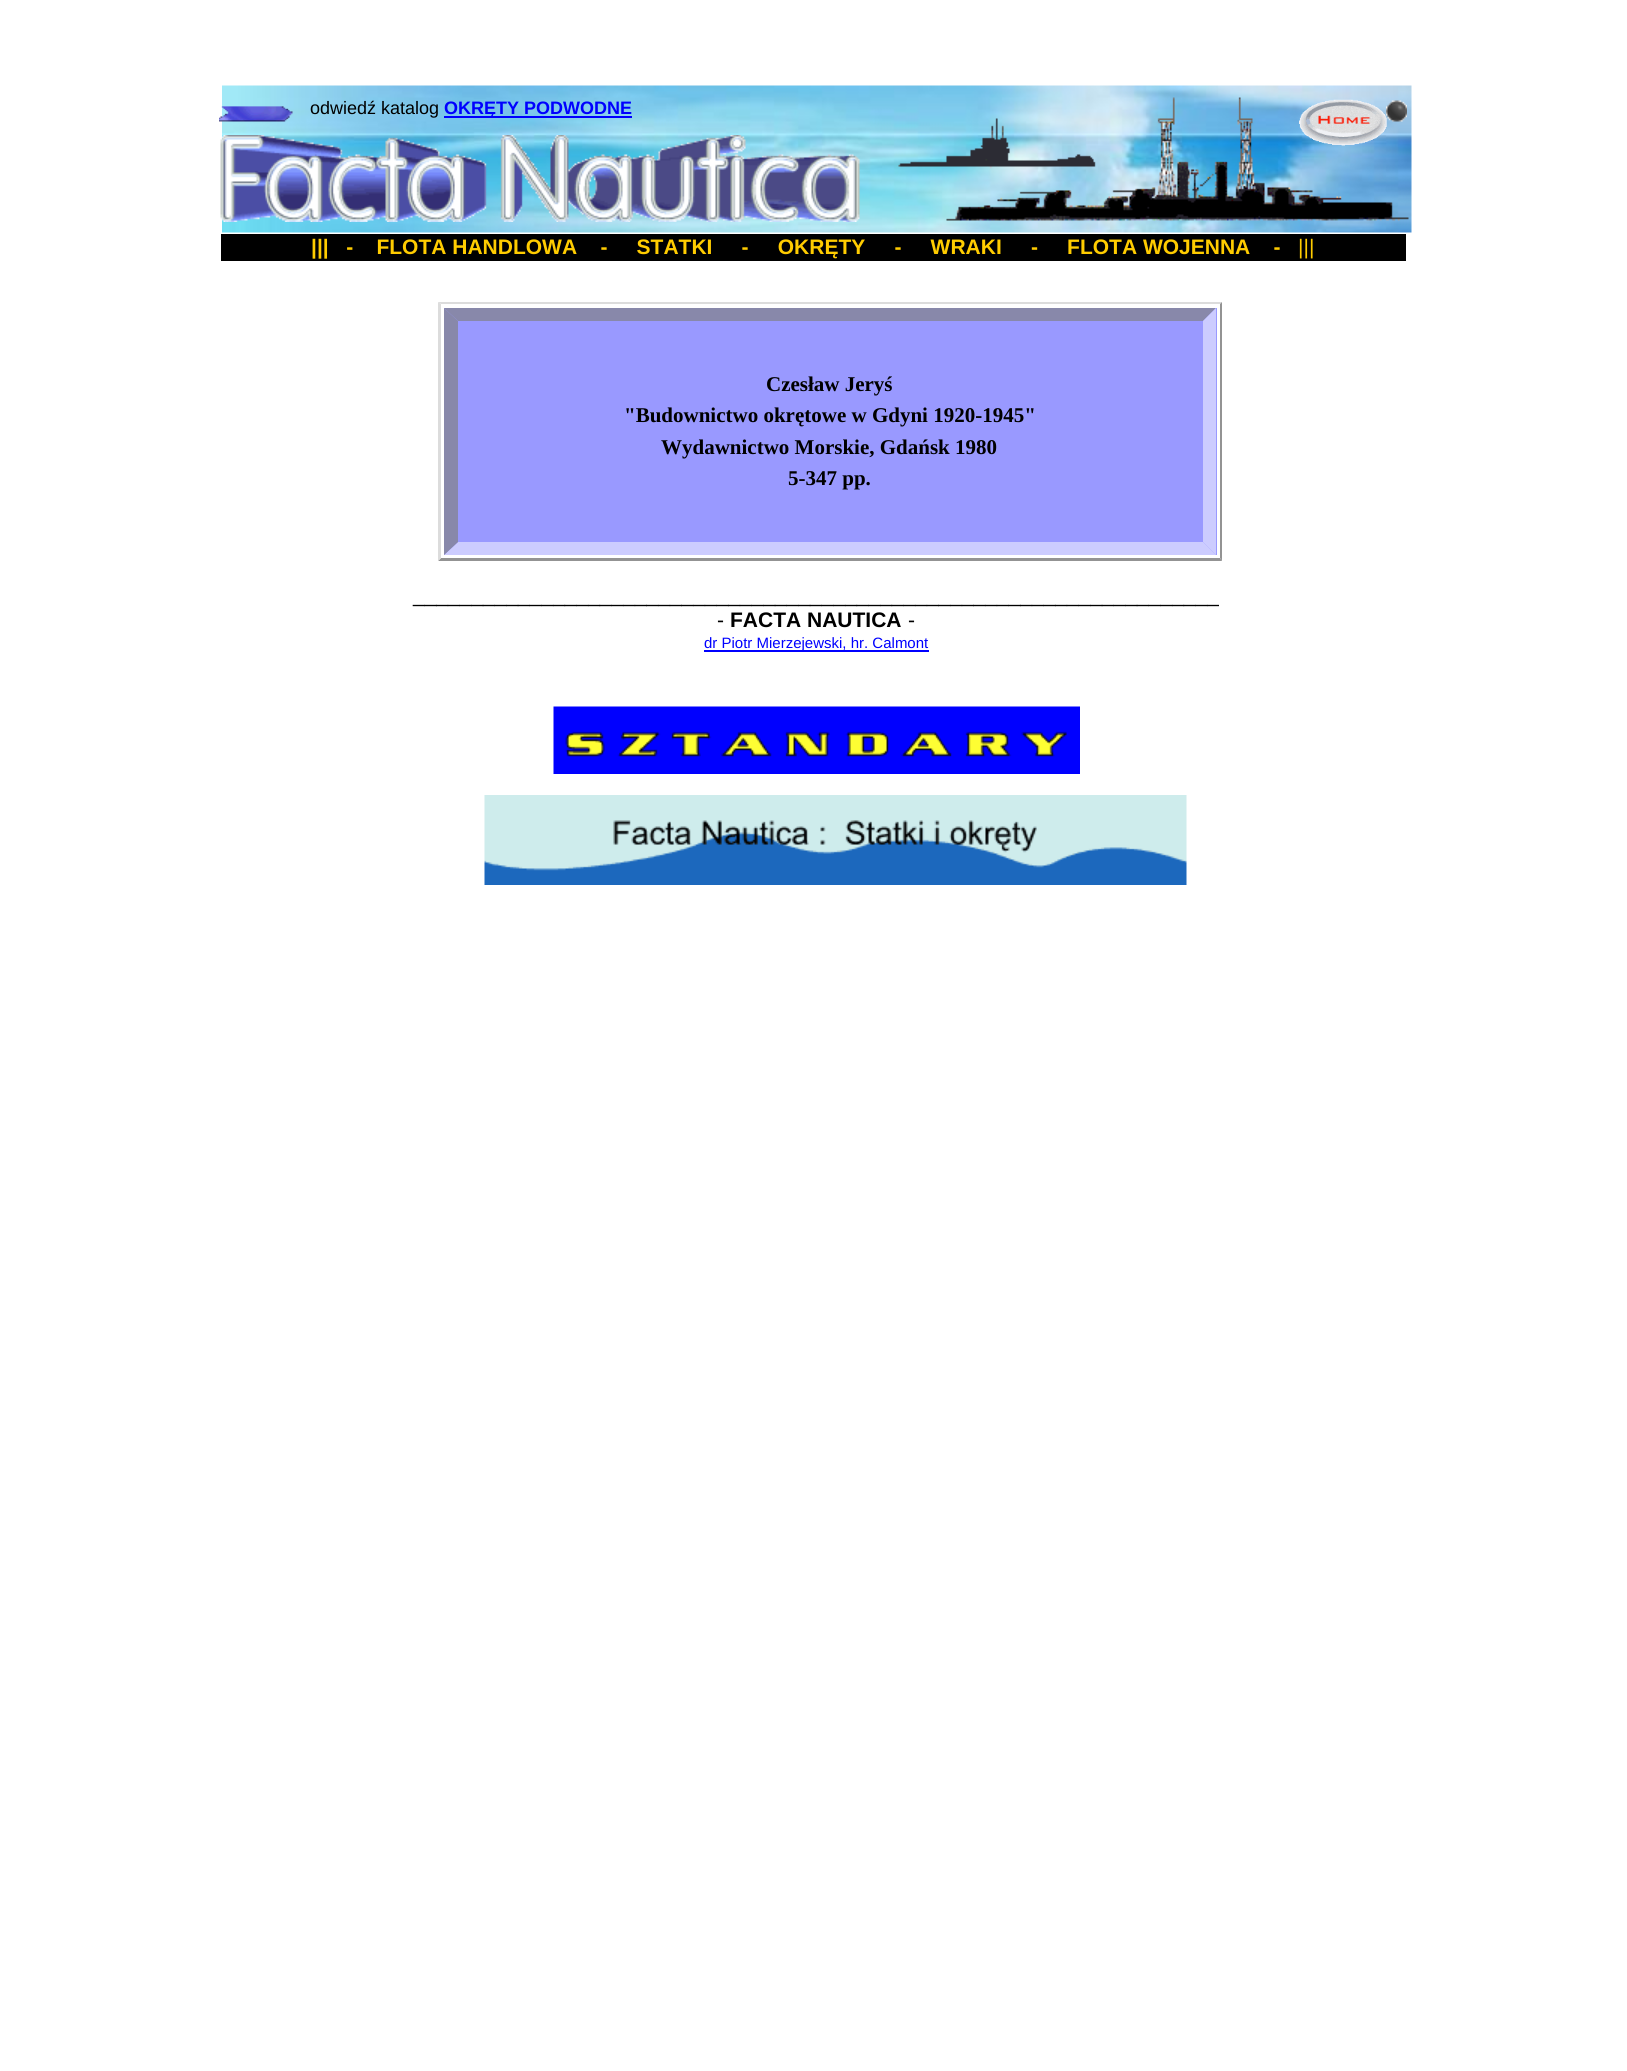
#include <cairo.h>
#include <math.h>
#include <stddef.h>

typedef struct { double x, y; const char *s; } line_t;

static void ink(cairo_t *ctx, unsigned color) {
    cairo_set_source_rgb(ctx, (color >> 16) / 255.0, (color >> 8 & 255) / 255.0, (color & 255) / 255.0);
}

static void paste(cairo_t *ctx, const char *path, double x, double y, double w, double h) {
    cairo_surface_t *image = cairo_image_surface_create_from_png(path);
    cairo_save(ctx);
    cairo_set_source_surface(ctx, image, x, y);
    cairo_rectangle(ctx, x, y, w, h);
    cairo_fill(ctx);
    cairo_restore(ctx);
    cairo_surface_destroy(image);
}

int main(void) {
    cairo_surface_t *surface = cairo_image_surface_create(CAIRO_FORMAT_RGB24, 1627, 2071);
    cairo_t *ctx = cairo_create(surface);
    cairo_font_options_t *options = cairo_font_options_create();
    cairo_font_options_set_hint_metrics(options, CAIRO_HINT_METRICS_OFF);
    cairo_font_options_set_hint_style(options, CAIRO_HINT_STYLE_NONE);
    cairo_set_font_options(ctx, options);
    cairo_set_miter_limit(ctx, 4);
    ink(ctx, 0xFFFFFF);
    cairo_paint(ctx);
    paste(ctx, "media/1.png", 222, 85, 1190, 148);
    paste(ctx, "media/5.png", 1386, 100, 21, 22);
    paste(ctx, "media/2.png", 946, 97, 463, 124);
    paste(ctx, "media/3.png", 219, 106, 74, 16);
    cairo_select_font_face(ctx, "Liberation Sans", CAIRO_FONT_SLANT_NORMAL, CAIRO_FONT_WEIGHT_NORMAL);
    cairo_set_font_size(ctx, 18);
    ink(ctx, 0x000000);
    cairo_move_to(ctx, 310, 114);
    cairo_show_text(ctx, "odwiedź katalog");
    ink(ctx, 0x0000FF);
    cairo_rectangle(ctx, 444, 116, 188, 2);
    cairo_fill(ctx);
    cairo_select_font_face(ctx, "Liberation Sans", CAIRO_FONT_SLANT_NORMAL, CAIRO_FONT_WEIGHT_BOLD);
    cairo_move_to(ctx, 444, 114);
    cairo_show_text(ctx, "OKRĘTY PODWODNE");
    paste(ctx, "media/4.png", 1299, 99, 88, 47);
    paste(ctx, "media/6.png", 220, 135, 640, 87);
    paste(ctx, "media/7.png", 898, 118, 198, 51);
    ink(ctx, 0x000000);
    cairo_rectangle(ctx, 221, 234, 1185, 27);
    cairo_fill(ctx);
    cairo_set_font_size(ctx, 21);
    ink(ctx, 0xFFCC00);
    cairo_move_to(ctx, 311, 254);
    cairo_show_text(ctx, "|||   -    FLOTA HANDLOWA    -     STATKI     -     OKRĘTY     -     WRAKI     -     FLOTA WOJENNA    -");
    cairo_select_font_face(ctx, "Liberation Sans", CAIRO_FONT_SLANT_NORMAL, CAIRO_FONT_WEIGHT_NORMAL);
    cairo_move_to(ctx, 1298, 254);
    cairo_show_text(ctx, "|||");
    ink(ctx, 0xDCDCDC);
    cairo_new_path(ctx);
    cairo_move_to(ctx, 438, 302);
    cairo_line_to(ctx, 1222, 302);
    cairo_line_to(ctx, 1220, 304);
    cairo_line_to(ctx, 441, 304);
    cairo_close_path(ctx);
    cairo_fill(ctx);
    ink(ctx, 0x939393);
    cairo_new_path(ctx);
    cairo_move_to(ctx, 1222, 302);
    cairo_line_to(ctx, 1222, 561);
    cairo_line_to(ctx, 1220, 558);
    cairo_line_to(ctx, 1220, 304);
    cairo_close_path(ctx);
    cairo_fill(ctx);
    cairo_new_path(ctx);
    cairo_move_to(ctx, 1222, 561);
    cairo_line_to(ctx, 438, 561);
    cairo_line_to(ctx, 441, 558);
    cairo_line_to(ctx, 1220, 558);
    cairo_close_path(ctx);
    cairo_fill(ctx);
    ink(ctx, 0xDCDCDC);
    cairo_new_path(ctx);
    cairo_move_to(ctx, 438, 561);
    cairo_line_to(ctx, 438, 302);
    cairo_line_to(ctx, 441, 304);
    cairo_line_to(ctx, 441, 558);
    cairo_close_path(ctx);
    cairo_fill(ctx);
    ink(ctx, 0x9999FF);
    cairo_rectangle(ctx, 444, 308, 773, 247);
    cairo_fill(ctx);
    ink(ctx, 0x8888AA);
    cairo_new_path(ctx);
    cairo_move_to(ctx, 444, 308);
    cairo_line_to(ctx, 1216, 308);
    cairo_line_to(ctx, 1203, 321);
    cairo_line_to(ctx, 458, 321);
    cairo_close_path(ctx);
    cairo_fill(ctx);
    ink(ctx, 0xCCCCFF);
    cairo_new_path(ctx);
    cairo_move_to(ctx, 1216, 308);
    cairo_line_to(ctx, 1216, 555);
    cairo_line_to(ctx, 1203, 542);
    cairo_line_to(ctx, 1203, 321);
    cairo_close_path(ctx);
    cairo_fill(ctx);
    cairo_new_path(ctx);
    cairo_move_to(ctx, 1216, 555);
    cairo_line_to(ctx, 444, 555);
    cairo_line_to(ctx, 458, 542);
    cairo_line_to(ctx, 1203, 542);
    cairo_close_path(ctx);
    cairo_fill(ctx);
    ink(ctx, 0x8888AA);
    cairo_new_path(ctx);
    cairo_move_to(ctx, 444, 555);
    cairo_line_to(ctx, 444, 308);
    cairo_line_to(ctx, 458, 321);
    cairo_line_to(ctx, 458, 542);
    cairo_close_path(ctx);
    cairo_fill(ctx);
    cairo_select_font_face(ctx, "Liberation Serif", CAIRO_FONT_SLANT_NORMAL, CAIRO_FONT_WEIGHT_BOLD);
    ink(ctx, 0x000000);
    {
        static const line_t items[] = {
            {766, 391, "Czesław Jeryś"},
            {624, 422, "\"Budownictwo okrętowe w Gdyni 1920-1945\""},
            {661, 454, "Wydawnictwo Morskie, Gdańsk 1980"},
            {788, 485, "5-347 pp."},
        };
        for (size_t i = 0; i < sizeof items / sizeof *items; i++) {
            cairo_move_to(ctx, items[i].x, items[i].y);
            cairo_show_text(ctx, items[i].s);
        }
    }
    cairo_select_font_face(ctx, "Liberation Sans", CAIRO_FONT_SLANT_NORMAL, CAIRO_FONT_WEIGHT_NORMAL);
    cairo_move_to(ctx, 413, 602);
    cairo_show_text(ctx, "_____________________________________________________________________");
    cairo_move_to(ctx, 717, 627);
    cairo_show_text(ctx, "-");
    cairo_select_font_face(ctx, "Liberation Sans", CAIRO_FONT_SLANT_NORMAL, CAIRO_FONT_WEIGHT_BOLD);
    cairo_move_to(ctx, 730, 627);
    cairo_show_text(ctx, "FACTA NAUTICA");
    cairo_select_font_face(ctx, "Liberation Sans", CAIRO_FONT_SLANT_NORMAL, CAIRO_FONT_WEIGHT_NORMAL);
    cairo_move_to(ctx, 908, 627);
    cairo_show_text(ctx, "-");
    ink(ctx, 0x0000FF);
    cairo_rectangle(ctx, 704, 650, 225, 2);
    cairo_fill(ctx);
    cairo_set_font_size(ctx, 15);
    cairo_move_to(ctx, 704, 648);
    cairo_show_text(ctx, "dr Piotr Mierzejewski, hr. Calmont");
    paste(ctx, "media/8.png", 553, 706, 527, 68);
    paste(ctx, "media/9.png", 484, 795, 703, 90);
    cairo_surface_write_to_png(surface, "image.png");
    cairo_font_options_destroy(options);
    cairo_destroy(ctx);
    cairo_surface_destroy(surface);
    return 0;
}
